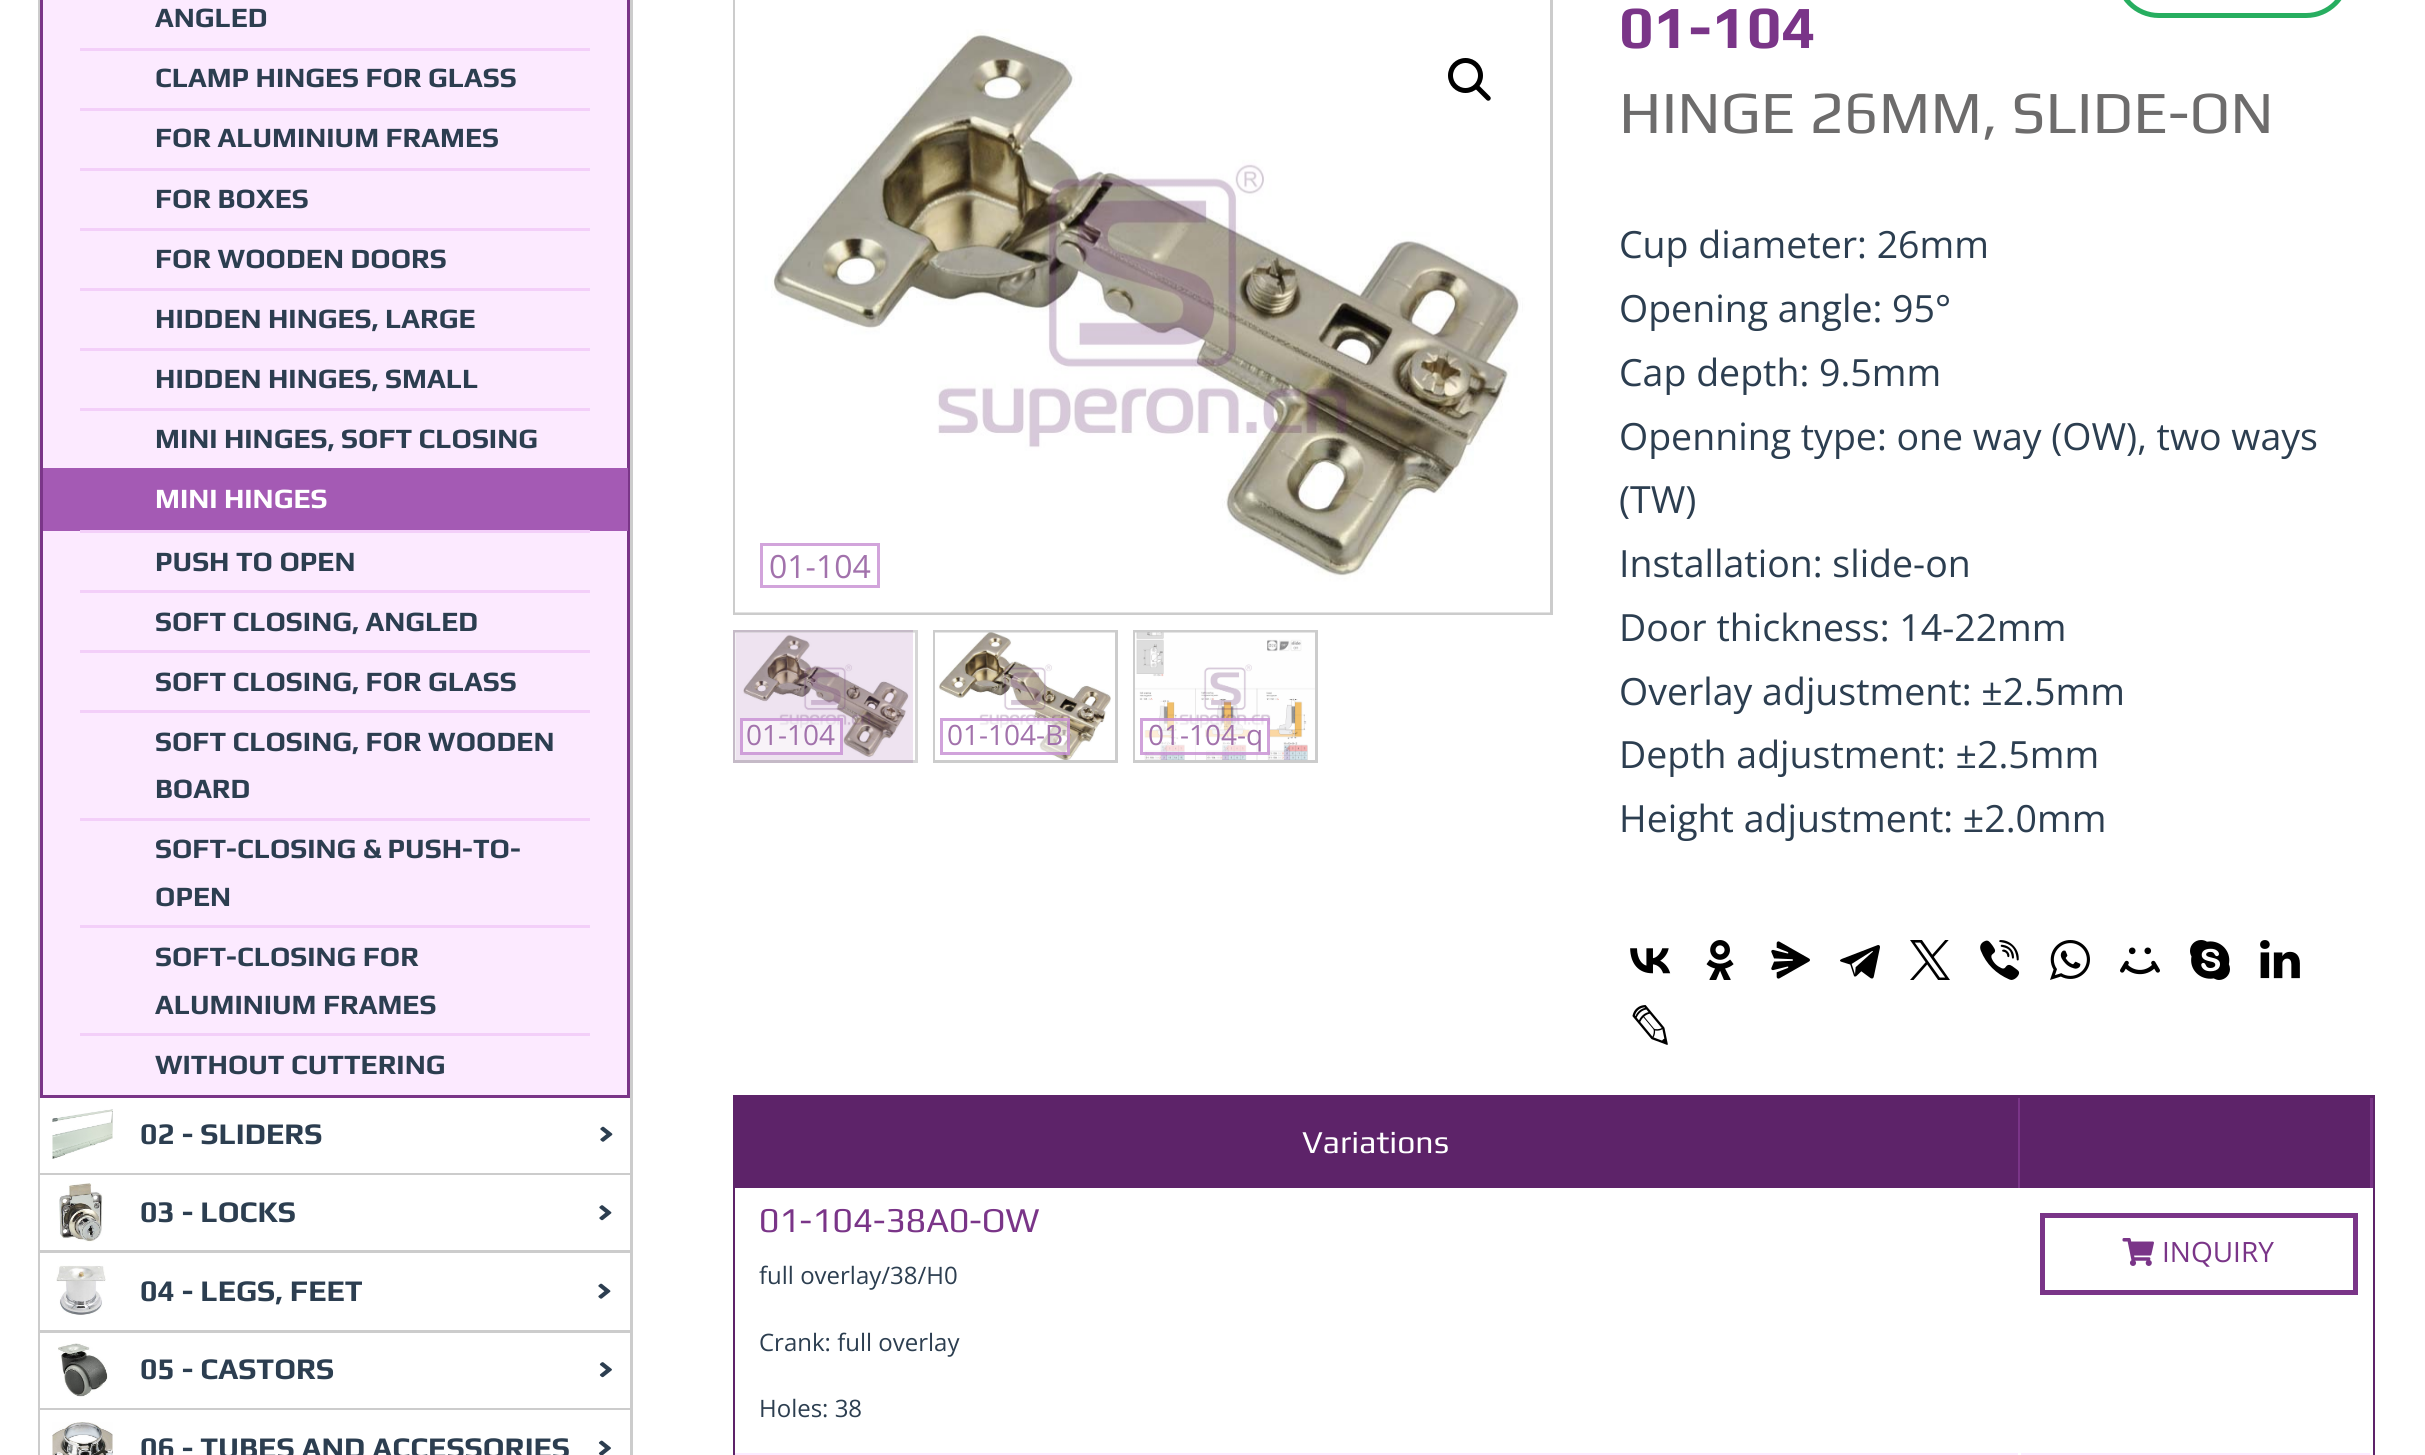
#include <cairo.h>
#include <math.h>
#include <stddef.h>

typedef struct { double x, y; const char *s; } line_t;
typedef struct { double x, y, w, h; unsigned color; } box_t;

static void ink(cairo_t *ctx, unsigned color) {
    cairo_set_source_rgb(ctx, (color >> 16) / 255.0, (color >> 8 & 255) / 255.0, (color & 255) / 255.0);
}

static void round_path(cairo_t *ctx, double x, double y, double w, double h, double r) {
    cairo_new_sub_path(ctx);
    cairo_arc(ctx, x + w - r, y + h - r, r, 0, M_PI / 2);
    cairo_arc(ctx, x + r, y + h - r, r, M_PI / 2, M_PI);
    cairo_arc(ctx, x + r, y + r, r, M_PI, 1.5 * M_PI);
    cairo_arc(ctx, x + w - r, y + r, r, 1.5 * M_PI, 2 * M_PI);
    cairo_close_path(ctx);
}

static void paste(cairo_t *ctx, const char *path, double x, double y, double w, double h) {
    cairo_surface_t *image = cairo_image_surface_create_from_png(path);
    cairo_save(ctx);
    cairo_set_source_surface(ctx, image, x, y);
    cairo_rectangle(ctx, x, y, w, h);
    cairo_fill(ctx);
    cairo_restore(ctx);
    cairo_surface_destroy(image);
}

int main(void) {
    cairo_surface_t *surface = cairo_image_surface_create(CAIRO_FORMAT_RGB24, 2425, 1455);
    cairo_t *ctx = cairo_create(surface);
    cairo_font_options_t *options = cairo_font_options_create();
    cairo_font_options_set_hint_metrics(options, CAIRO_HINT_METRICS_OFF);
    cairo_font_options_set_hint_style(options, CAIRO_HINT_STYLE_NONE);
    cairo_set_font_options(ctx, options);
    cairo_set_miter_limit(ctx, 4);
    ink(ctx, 0xFFFFFF);
    cairo_paint(ctx);
    ink(ctx, 0xCCCCCC);
    cairo_rectangle(ctx, 630, 0, 3, 1455);
    cairo_fill(ctx);
    cairo_rectangle(ctx, 38, 0, 2, 1455);
    cairo_fill(ctx);
    ink(ctx, 0xFCEAFF);
    cairo_rectangle(ctx, 41.5, -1.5, 587, 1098);
    cairo_fill_preserve(ctx);
    ink(ctx, 0x7A3588);
    cairo_set_line_width(ctx, 3);
    cairo_stroke(ctx);
    cairo_select_font_face(ctx, "Play", CAIRO_FONT_SLANT_NORMAL, CAIRO_FONT_WEIGHT_BOLD);
    cairo_set_font_size(ctx, 28);
    ink(ctx, 0x2C3E50);
    cairo_move_to(ctx, 155, 27);
    cairo_show_text(ctx, "ANGLED");
    ink(ctx, 0xF3CFF9);
    cairo_rectangle(ctx, 80, 48, 510, 3);
    cairo_fill(ctx);
    ink(ctx, 0x2C3E50);
    cairo_move_to(ctx, 155, 87);
    cairo_show_text(ctx, "CLAMP HINGES FOR GLASS");
    ink(ctx, 0xF3CFF9);
    cairo_rectangle(ctx, 80, 108, 510, 3);
    cairo_fill(ctx);
    ink(ctx, 0x2C3E50);
    cairo_move_to(ctx, 155, 147);
    cairo_show_text(ctx, "FOR ALUMINIUM FRAMES");
    ink(ctx, 0xF3CFF9);
    cairo_rectangle(ctx, 80, 168, 510, 3);
    cairo_fill(ctx);
    ink(ctx, 0x2C3E50);
    cairo_move_to(ctx, 155, 208);
    cairo_show_text(ctx, "FOR BOXES");
    ink(ctx, 0xF3CFF9);
    cairo_rectangle(ctx, 80, 228, 510, 3);
    cairo_fill(ctx);
    ink(ctx, 0x2C3E50);
    cairo_move_to(ctx, 155, 268);
    cairo_show_text(ctx, "FOR WOODEN DOORS");
    ink(ctx, 0xF3CFF9);
    cairo_rectangle(ctx, 80, 288, 510, 3);
    cairo_fill(ctx);
    ink(ctx, 0x2C3E50);
    cairo_move_to(ctx, 155, 328);
    cairo_show_text(ctx, "HIDDEN HINGES, LARGE");
    ink(ctx, 0xF3CFF9);
    cairo_rectangle(ctx, 80, 348, 510, 3);
    cairo_fill(ctx);
    ink(ctx, 0x2C3E50);
    cairo_move_to(ctx, 155, 388);
    cairo_show_text(ctx, "HIDDEN HINGES, SMALL");
    ink(ctx, 0xF3CFF9);
    cairo_rectangle(ctx, 80, 408, 510, 3);
    cairo_fill(ctx);
    ink(ctx, 0x2C3E50);
    cairo_move_to(ctx, 155, 448);
    cairo_show_text(ctx, "MINI HINGES, SOFT CLOSING");
    ink(ctx, 0xA45AB4);
    cairo_rectangle(ctx, 43, 468, 585, 63);
    cairo_fill(ctx);
    ink(ctx, 0xFFFFFF);
    cairo_move_to(ctx, 155, 508);
    cairo_show_text(ctx, "MINI HINGES");
    ink(ctx, 0xF3CFF9);
    cairo_rectangle(ctx, 80, 530, 510, 3);
    cairo_fill(ctx);
    ink(ctx, 0x2C3E50);
    cairo_move_to(ctx, 155, 571);
    cairo_show_text(ctx, "PUSH TO OPEN");
    ink(ctx, 0xF3CFF9);
    cairo_rectangle(ctx, 80, 590, 510, 3);
    cairo_fill(ctx);
    ink(ctx, 0x2C3E50);
    cairo_move_to(ctx, 155, 631);
    cairo_show_text(ctx, "SOFT CLOSING, ANGLED");
    ink(ctx, 0xF3CFF9);
    cairo_rectangle(ctx, 80, 650, 510, 3);
    cairo_fill(ctx);
    ink(ctx, 0x2C3E50);
    cairo_move_to(ctx, 155, 691);
    cairo_show_text(ctx, "SOFT CLOSING, FOR GLASS");
    ink(ctx, 0xF3CFF9);
    cairo_rectangle(ctx, 80, 710, 510, 3);
    cairo_fill(ctx);
    ink(ctx, 0x2C3E50);
    cairo_move_to(ctx, 155, 751);
    cairo_show_text(ctx, "SOFT CLOSING, FOR WOODEN");
    cairo_move_to(ctx, 155, 798);
    cairo_show_text(ctx, "BOARD");
    ink(ctx, 0xF3CFF9);
    cairo_rectangle(ctx, 80, 818, 510, 3);
    cairo_fill(ctx);
    ink(ctx, 0x2C3E50);
    cairo_move_to(ctx, 155, 858);
    cairo_show_text(ctx, "SOFT-CLOSING & PUSH-TO-");
    cairo_move_to(ctx, 155, 906);
    cairo_show_text(ctx, "OPEN");
    ink(ctx, 0xF3CFF9);
    cairo_rectangle(ctx, 80, 925, 510, 3);
    cairo_fill(ctx);
    ink(ctx, 0x2C3E50);
    cairo_move_to(ctx, 155, 966);
    cairo_show_text(ctx, "SOFT-CLOSING FOR");
    cairo_move_to(ctx, 155, 1014);
    cairo_show_text(ctx, "ALUMINIUM FRAMES");
    ink(ctx, 0xF3CFF9);
    cairo_rectangle(ctx, 80, 1033, 510, 3);
    cairo_fill(ctx);
    ink(ctx, 0x2C3E50);
    cairo_move_to(ctx, 155, 1074);
    cairo_show_text(ctx, "WITHOUT CUTTERING");
    ink(ctx, 0xCCCCCC);
    cairo_rectangle(ctx, 40, 1173, 590, 2);
    cairo_fill(ctx);
    paste(ctx, "media/1.png", 52, 1109, 61, 50);
    cairo_set_font_size(ctx, 30);
    ink(ctx, 0x2C3E50);
    cairo_move_to(ctx, 140, 1144);
    cairo_show_text(ctx, "02 - SLIDERS");
    paste(ctx, "media/2.png", 600, 1126, 13, 16);
    ink(ctx, 0xCCCCCC);
    cairo_rectangle(ctx, 40, 1250, 590, 3);
    cairo_fill(ctx);
    paste(ctx, "media/3.png", 59, 1183, 44, 59);
    ink(ctx, 0x2C3E50);
    cairo_move_to(ctx, 140, 1222);
    cairo_show_text(ctx, "03 - LOCKS");
    paste(ctx, "media/4.png", 599, 1205, 13, 16);
    ink(ctx, 0xCCCCCC);
    cairo_rectangle(ctx, 40, 1330, 590, 3);
    cairo_fill(ctx);
    paste(ctx, "media/5.png", 56, 1265, 50, 50);
    ink(ctx, 0x2C3E50);
    cairo_move_to(ctx, 140, 1301);
    cairo_show_text(ctx, "04 - LEGS, FEET");
    paste(ctx, "media/6.png", 598, 1283, 13, 16);
    ink(ctx, 0xCCCCCC);
    cairo_rectangle(ctx, 40, 1408, 590, 2);
    cairo_fill(ctx);
    paste(ctx, "media/7.png", 58, 1343, 50, 54);
    ink(ctx, 0x2C3E50);
    cairo_move_to(ctx, 140, 1379);
    cairo_show_text(ctx, "05 - CASTORS");
    paste(ctx, "media/8.png", 599, 1362, 13, 16);
    paste(ctx, "media/9.png", 52, 1422, 61, 33);
    cairo_move_to(ctx, 140, 1458);
    cairo_show_text(ctx, "06 - TUBES AND ACCESSORIES");
    paste(ctx, "media/10.png", 598, 1440, 13, 15);
    round_path(ctx, 2117.5, -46.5, 230, 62, 41.5);
    ink(ctx, 0x27AE60);
    cairo_set_line_width(ctx, 5);
    cairo_stroke(ctx);
    cairo_rectangle(ctx, 734.5, -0.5, 817, 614);
    ink(ctx, 0xCCCCCC);
    cairo_set_line_width(ctx, 3);
    cairo_stroke(ctx);
    paste(ctx, "media/11.png", 735, 0, 815, 613);
    cairo_arc(ctx, 1465.5, 75.5, 15, 0, 2 * M_PI);
    ink(ctx, 0x000000);
    cairo_set_line_width(ctx, 5);
    cairo_stroke(ctx);
    cairo_new_path(ctx);
    cairo_move_to(ctx, 1476, 86);
    cairo_curve_to(ctx, 1477, 85, 1478.5, 85, 1479.5, 86);
    cairo_line_to(ctx, 1490, 96.5);
    cairo_curve_to(ctx, 1491, 97.5, 1491, 99, 1490, 100);
    cairo_curve_to(ctx, 1489, 101, 1487.5, 101, 1486.5, 100);
    cairo_line_to(ctx, 1476, 89.5);
    cairo_curve_to(ctx, 1475, 88.5, 1475, 87, 1476, 86);
    cairo_close_path(ctx);
    cairo_fill(ctx);
    cairo_rectangle(ctx, 761.5, 544.5, 117, 42);
    ink(ctx, 0xD2A4DB);
    cairo_set_line_width(ctx, 3);
    cairo_stroke(ctx);
    cairo_select_font_face(ctx, "Open Sans", CAIRO_FONT_SLANT_NORMAL, CAIRO_FONT_WEIGHT_NORMAL);
    cairo_set_font_size(ctx, 32);
    ink(ctx, 0xA272AC);
    cairo_move_to(ctx, 769, 578);
    cairo_show_text(ctx, "01-104");
    ink(ctx, 0xA972B4);
    cairo_rectangle(ctx, 733, 630, 180, 133);
    cairo_fill(ctx);
    cairo_rectangle(ctx, 734.5, 631.5, 182, 130);
    cairo_set_source_rgba(ctx, 0.8, 0.8, 0.8, 0.8);
    cairo_stroke(ctx);
    paste(ctx, "media/12.png", 735, 632, 180, 128);
    cairo_set_source_rgba(ctx, 1, 1, 1, 0.56);
    cairo_rectangle(ctx, 740, 718, 103, 37);
    cairo_fill(ctx);
    cairo_rectangle(ctx, 741.5, 719.5, 100, 34);
    cairo_set_source_rgba(ctx, 0.745, 0.49, 0.8, 0.7);
    cairo_stroke(ctx);
    cairo_set_font_size(ctx, 28);
    ink(ctx, 0xA272AC);
    cairo_move_to(ctx, 746, 745);
    cairo_show_text(ctx, "01-104");
    cairo_rectangle(ctx, 934.5, 631.5, 182, 130);
    ink(ctx, 0xCCCCCC);
    cairo_stroke(ctx);
    paste(ctx, "media/13.png", 935, 632, 180, 128);
    cairo_set_source_rgba(ctx, 1, 1, 1, 0.56);
    cairo_rectangle(ctx, 979, 718, 91, 37);
    cairo_fill(ctx);
    cairo_rectangle(ctx, 941.5, 719.5, 127, 34);
    cairo_set_source_rgba(ctx, 0.745, 0.49, 0.8, 0.7);
    cairo_stroke(ctx);
    ink(ctx, 0xA272AC);
    cairo_move_to(ctx, 947, 745);
    cairo_show_text(ctx, "01-104-B");
    cairo_rectangle(ctx, 1134.5, 631.5, 182, 130);
    ink(ctx, 0xCCCCCC);
    cairo_stroke(ctx);
    paste(ctx, "media/14.png", 1135, 632, 180, 128);
    cairo_set_source_rgba(ctx, 1, 1, 1, 0.56);
    cairo_rectangle(ctx, 1144, 718, 126, 37);
    cairo_fill(ctx);
    cairo_rectangle(ctx, 1141.5, 719.5, 127, 34);
    cairo_set_source_rgba(ctx, 0.745, 0.49, 0.8, 0.7);
    cairo_stroke(ctx);
    ink(ctx, 0xA272AC);
    cairo_move_to(ctx, 1148, 745);
    cairo_show_text(ctx, "01-104-q");
    cairo_select_font_face(ctx, "Play", CAIRO_FONT_SLANT_NORMAL, CAIRO_FONT_WEIGHT_BOLD);
    cairo_set_font_size(ctx, 60);
    ink(ctx, 0x7A3588);
    cairo_move_to(ctx, 1619, 48);
    cairo_show_text(ctx, "01-104");
    cairo_select_font_face(ctx, "Play", CAIRO_FONT_SLANT_NORMAL, CAIRO_FONT_WEIGHT_NORMAL);
    ink(ctx, 0x6D6C6C);
    cairo_move_to(ctx, 1619, 133);
    cairo_show_text(ctx, "HINGE 26MM, SLIDE-ON");
    cairo_select_font_face(ctx, "Open Sans", CAIRO_FONT_SLANT_NORMAL, CAIRO_FONT_WEIGHT_NORMAL);
    cairo_set_font_size(ctx, 37.5);
    ink(ctx, 0x2C3E50);
    {
        static const line_t items[] = {
            {1619, 258, "Cup diameter: 26mm"},
            {1619, 322, "Opening angle: 95°"},
            {1619, 386, "Cap depth: 9.5mm"},
            {1619, 450, "Openning type: one way (OW), two ways"},
            {1619, 513, "(TW)"},
            {1619, 577, "Installation: slide-on"},
            {1619, 641, "Door thickness: 14-22mm"},
            {1619, 705, "Overlay adjustment: ±2.5mm"},
            {1619, 768, "Depth adjustment: ±2.5mm"},
            {1619, 832, "Height adjustment: ±2.0mm"},
        };
        for (size_t i = 0; i < sizeof items / sizeof *items; i++) {
            cairo_move_to(ctx, items[i].x, items[i].y);
            cairo_show_text(ctx, items[i].s);
        }
    }
    paste(ctx, "media/15.png", 1630, 948, 41, 26);
    paste(ctx, "media/16.png", 1706, 940, 28, 40);
    paste(ctx, "media/17.png", 1771, 941, 39, 38);
    paste(ctx, "media/18.png", 1840, 945, 40, 34);
    paste(ctx, "media/19.png", 1910, 940, 40, 40);
    paste(ctx, "media/20.png", 1980, 940, 40, 40);
    paste(ctx, "media/21.png", 2050, 940, 40, 40);
    paste(ctx, "media/22.png", 2120, 947, 40, 28);
    paste(ctx, "media/23.png", 2190, 940, 40, 40);
    paste(ctx, "media/24.png", 2260, 940, 40, 39);
    paste(ctx, "media/25.png", 1632, 1005, 36, 40);
    cairo_rectangle(ctx, 734.5, 1096.5, 1639, 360);
    ink(ctx, 0x5D2369);
    cairo_stroke(ctx);
    cairo_rectangle(ctx, 736, 1098, 1282, 90);
    cairo_fill(ctx);
    ink(ctx, 0x7A3588);
    cairo_rectangle(ctx, 2018, 1098, 2, 90);
    cairo_fill(ctx);
    cairo_select_font_face(ctx, "Play", CAIRO_FONT_SLANT_NORMAL, CAIRO_FONT_WEIGHT_NORMAL);
    cairo_set_font_size(ctx, 32);
    ink(ctx, 0xFFFFFF);
    cairo_move_to(ctx, 1302, 1153);
    cairo_show_text(ctx, "Variations");
    {
        static const box_t items[] = {
            {2020, 1098, 350, 90, 0x5D2369},
            {2370, 1098, 3, 90, 0x7A3588},
            {735, 1188, 1638, 265, 0xFFFFFF},
        };
        for (size_t i = 0; i < sizeof items / sizeof *items; i++) {
            ink(ctx, items[i].color);
            cairo_rectangle(ctx, items[i].x, items[i].y, items[i].w, items[i].h);
            cairo_fill(ctx);
        }
    }
    cairo_set_font_size(ctx, 35);
    ink(ctx, 0x7A3588);
    cairo_move_to(ctx, 759, 1232);
    cairo_show_text(ctx, "01-104-38A0-OW");
    cairo_select_font_face(ctx, "Open Sans", CAIRO_FONT_SLANT_NORMAL, CAIRO_FONT_WEIGHT_NORMAL);
    cairo_set_font_size(ctx, 24);
    ink(ctx, 0x2C3E50);
    {
        static const line_t items[] = {
            {759, 1284, "full overlay/38/H0"},
            {759, 1351, "Crank: full overlay"},
            {759, 1417, "Holes: 38"},
        };
        for (size_t i = 0; i < sizeof items / sizeof *items; i++) {
            cairo_move_to(ctx, items[i].x, items[i].y);
            cairo_show_text(ctx, items[i].s);
        }
    }
    cairo_rectangle(ctx, 2042.5, 1215.5, 313, 77);
    ink(ctx, 0x7A3588);
    cairo_set_line_width(ctx, 5);
    cairo_stroke(ctx);
    paste(ctx, "media/26.png", 2122, 1238, 32, 28);
    cairo_set_font_size(ctx, 28);
    cairo_move_to(ctx, 2162, 1262);
    cairo_show_text(ctx, "INQUIRY");
    {
        static const box_t items[] = {
            {735, 1453, 1638, 2, 0xFCEAFF},
            {2018, 1453, 3, 2, 0xFFFFFF},
            {2370, 1453, 3, 2, 0xFFFFFF},
        };
        for (size_t i = 0; i < sizeof items / sizeof *items; i++) {
            ink(ctx, items[i].color);
            cairo_rectangle(ctx, items[i].x, items[i].y, items[i].w, items[i].h);
            cairo_fill(ctx);
        }
    }
    cairo_surface_write_to_png(surface, "image.png");
    cairo_font_options_destroy(options);
    cairo_destroy(ctx);
    cairo_surface_destroy(surface);
    return 0;
}
